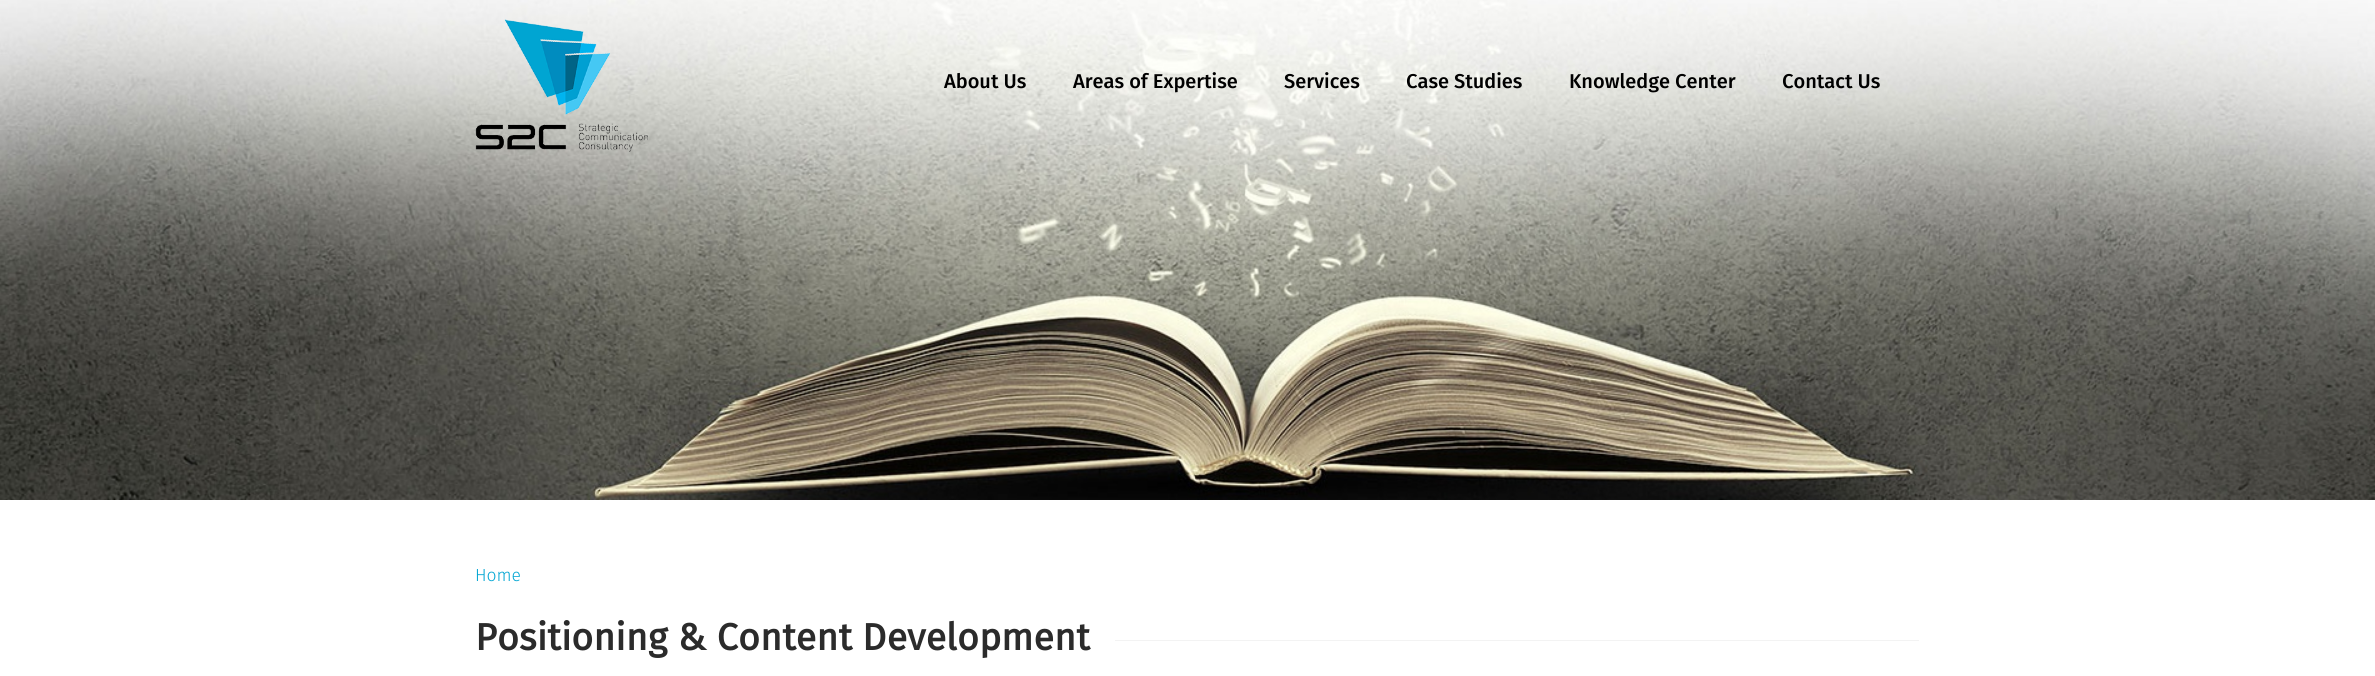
#include <cairo.h>
#include <math.h>
#include <stddef.h>

typedef struct { double x, y; const char *s; } line_t;

static void ink(cairo_t *ctx, unsigned color) {
    cairo_set_source_rgb(ctx, (color >> 16) / 255.0, (color >> 8 & 255) / 255.0, (color & 255) / 255.0);
}

static void paste(cairo_t *ctx, const char *path, double x, double y, double w, double h) {
    cairo_surface_t *image = cairo_image_surface_create_from_png(path);
    cairo_save(ctx);
    cairo_set_source_surface(ctx, image, x, y);
    cairo_rectangle(ctx, x, y, w, h);
    cairo_fill(ctx);
    cairo_restore(ctx);
    cairo_surface_destroy(image);
}

int main(void) {
    cairo_surface_t *surface = cairo_image_surface_create(CAIRO_FORMAT_RGB24, 2375, 676);
    cairo_t *ctx = cairo_create(surface);
    cairo_font_options_t *options = cairo_font_options_create();
    cairo_font_options_set_hint_metrics(options, CAIRO_HINT_METRICS_OFF);
    cairo_font_options_set_hint_style(options, CAIRO_HINT_STYLE_NONE);
    cairo_set_font_options(ctx, options);
    cairo_set_miter_limit(ctx, 4);
    ink(ctx, 0xFFFFFF);
    cairo_paint(ctx);
    paste(ctx, "media/1.png", 0, 0, 2375, 500);
    paste(ctx, "media/2.png", 475, 19, 173, 133);
    cairo_select_font_face(ctx, "Fira Sans Medium", CAIRO_FONT_SLANT_NORMAL, CAIRO_FONT_WEIGHT_NORMAL);
    cairo_set_font_size(ctx, 20);
    ink(ctx, 0x000000);
    {
        static const line_t items[] = {
            {944, 88, "About Us"},
            {1073, 88, "Areas of Expertise"},
            {1284, 88, "Services"},
            {1406, 88, "Case Studies"},
            {1569, 88, "Knowledge Center"},
            {1782, 88, "Contact Us"},
        };
        for (size_t i = 0; i < sizeof items / sizeof *items; i++) {
            cairo_move_to(ctx, items[i].x, items[i].y);
            cairo_show_text(ctx, items[i].s);
        }
    }
    cairo_select_font_face(ctx, "Fira Sans Light", CAIRO_FONT_SLANT_NORMAL, CAIRO_FONT_WEIGHT_NORMAL);
    cairo_set_font_size(ctx, 17.5);
    ink(ctx, 0x00A5D2);
    cairo_move_to(ctx, 475, 581);
    cairo_show_text(ctx, "Home");
    cairo_select_font_face(ctx, "Fira Sans", CAIRO_FONT_SLANT_NORMAL, CAIRO_FONT_WEIGHT_BOLD);
    cairo_set_font_size(ctx, 37.5);
    ink(ctx, 0x2B2B2B);
    cairo_move_to(ctx, 475, 650);
    cairo_show_text(ctx, "Positioning & Content Development");
    ink(ctx, 0xF3F3F3);
    cairo_rectangle(ctx, 1115, 640, 804, 1);
    cairo_fill(ctx);
    cairo_surface_write_to_png(surface, "image.png");
    cairo_font_options_destroy(options);
    cairo_destroy(ctx);
    cairo_surface_destroy(surface);
    return 0;
}
